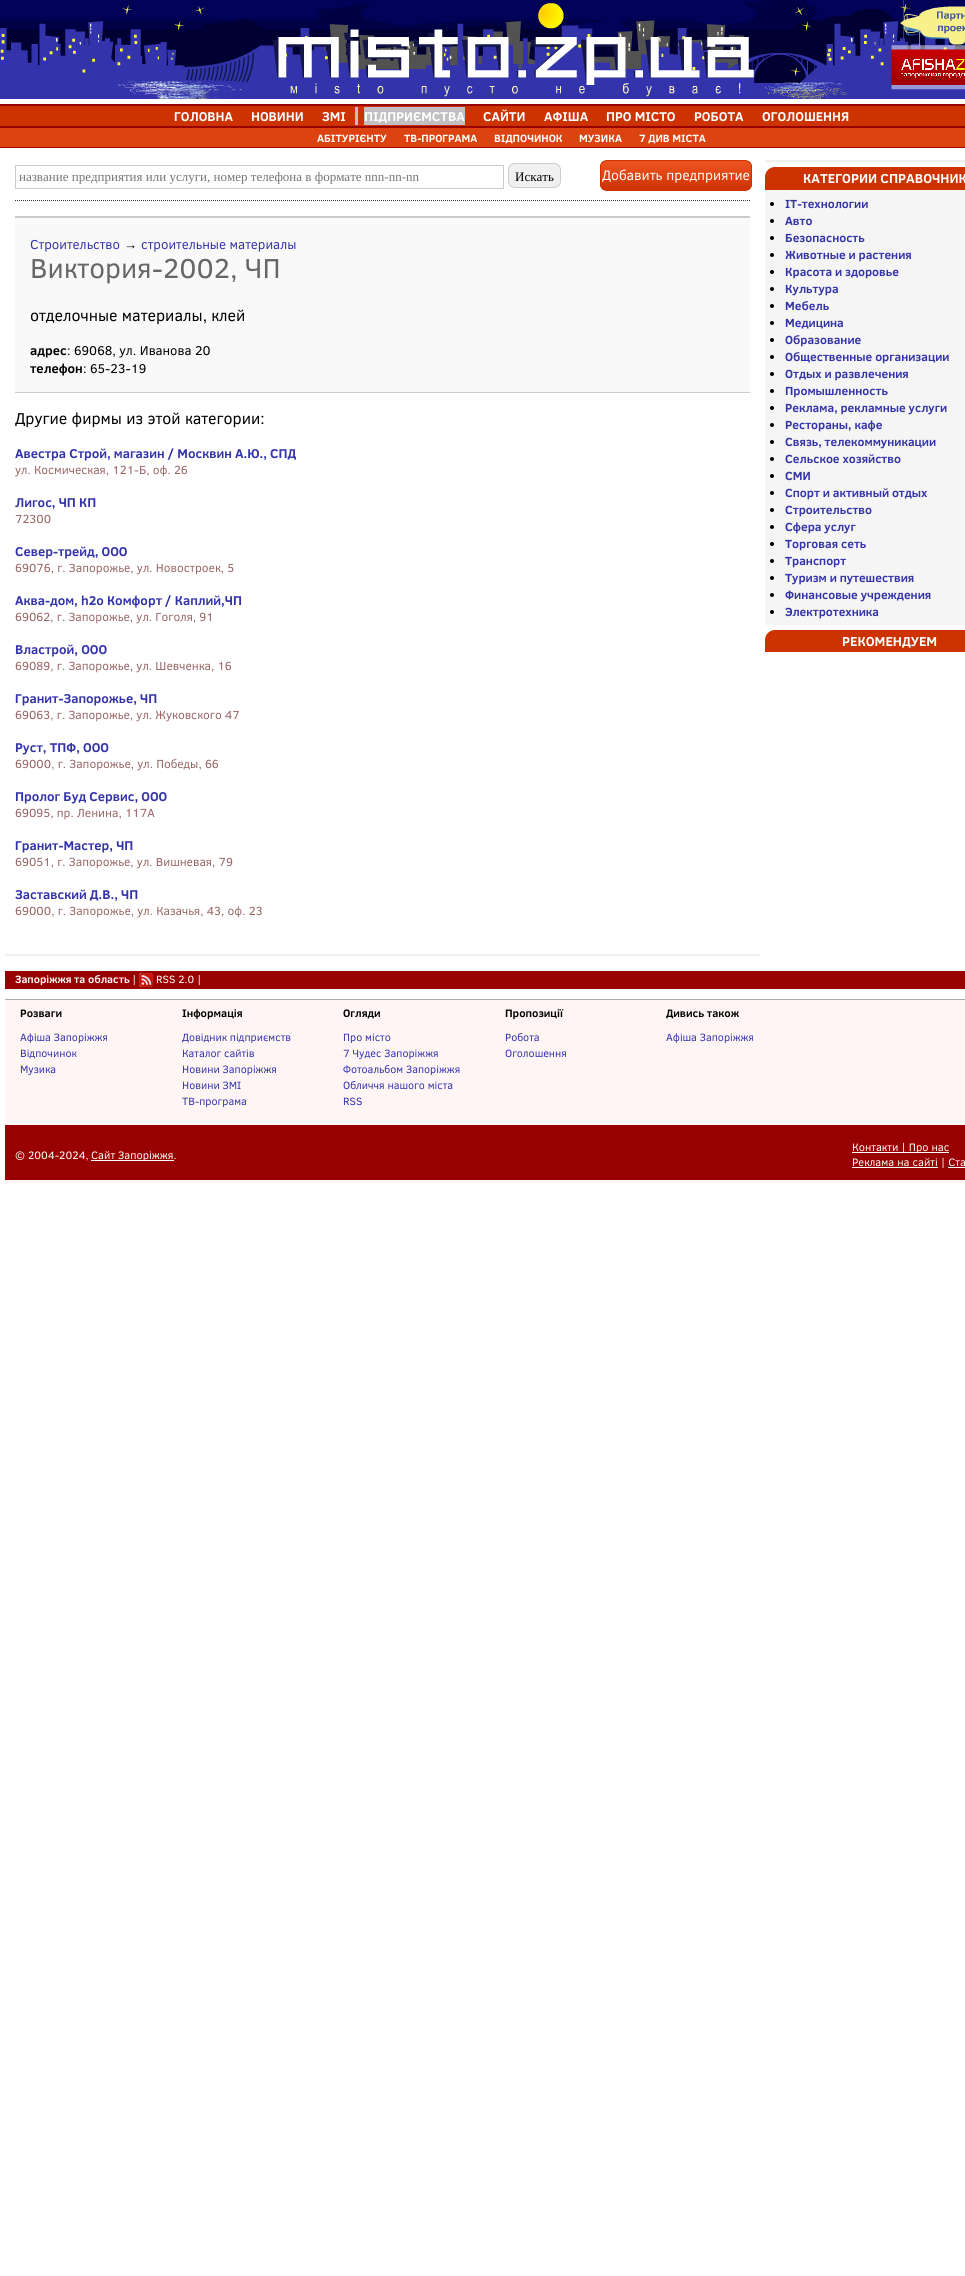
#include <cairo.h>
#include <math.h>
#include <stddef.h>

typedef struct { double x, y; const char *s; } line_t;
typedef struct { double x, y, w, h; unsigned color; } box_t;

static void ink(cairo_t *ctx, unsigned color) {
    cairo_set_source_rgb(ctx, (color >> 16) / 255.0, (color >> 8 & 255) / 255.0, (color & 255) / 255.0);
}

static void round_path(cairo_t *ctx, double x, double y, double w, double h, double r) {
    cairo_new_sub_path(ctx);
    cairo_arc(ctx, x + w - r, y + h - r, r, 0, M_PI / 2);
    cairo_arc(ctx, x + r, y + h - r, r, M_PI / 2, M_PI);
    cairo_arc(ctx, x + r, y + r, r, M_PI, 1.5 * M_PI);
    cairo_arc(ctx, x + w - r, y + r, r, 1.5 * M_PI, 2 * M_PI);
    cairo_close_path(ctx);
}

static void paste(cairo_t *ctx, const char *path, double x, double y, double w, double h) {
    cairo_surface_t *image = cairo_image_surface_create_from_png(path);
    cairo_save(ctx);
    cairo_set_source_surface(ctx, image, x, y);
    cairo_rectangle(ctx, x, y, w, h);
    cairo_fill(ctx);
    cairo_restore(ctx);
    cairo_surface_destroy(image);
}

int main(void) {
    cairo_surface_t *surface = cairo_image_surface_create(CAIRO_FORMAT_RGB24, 965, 2276);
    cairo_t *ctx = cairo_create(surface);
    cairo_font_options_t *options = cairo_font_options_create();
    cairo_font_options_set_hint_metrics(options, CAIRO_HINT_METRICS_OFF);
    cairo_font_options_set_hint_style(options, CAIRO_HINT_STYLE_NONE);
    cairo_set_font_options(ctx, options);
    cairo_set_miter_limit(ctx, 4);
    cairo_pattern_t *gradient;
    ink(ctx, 0xFFFFFF);
    cairo_paint(ctx);
    paste(ctx, "media/1.png", 0, 0, 965, 99);
    {
        static const box_t items[] = {
            {0, 106, 965, 20, 0xCC3300},
            {0, 104, 965, 2, 0x990000},
            {0, 126, 965, 2, 0x990000},
        };
        for (size_t i = 0; i < sizeof items / sizeof *items; i++) {
            ink(ctx, items[i].color);
            cairo_rectangle(ctx, items[i].x, items[i].y, items[i].w, items[i].h);
            cairo_fill(ctx);
        }
    }
    cairo_select_font_face(ctx, "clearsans", CAIRO_FONT_SLANT_NORMAL, CAIRO_FONT_WEIGHT_BOLD);
    cairo_set_font_size(ctx, 13);
    ink(ctx, 0xFFFFFF);
    {
        static const line_t items[] = {
            {174, 121, "ГОЛОВНА"},
            {251, 121, "НОВИНИ"},
            {322, 121, "ЗМІ"},
        };
        for (size_t i = 0; i < sizeof items / sizeof *items; i++) {
            cairo_move_to(ctx, items[i].x, items[i].y);
            cairo_show_text(ctx, items[i].s);
        }
    }
    ink(ctx, 0xC0C0C0);
    cairo_rectangle(ctx, 364, 107, 101, 18);
    cairo_fill(ctx);
    ink(ctx, 0xFFFFFF);
    cairo_move_to(ctx, 364, 121);
    cairo_show_text(ctx, "ПІДПРИЄМСТВА");
    ink(ctx, 0xC0C0C0);
    cairo_rectangle(ctx, 355, 107, 3, 18);
    cairo_fill(ctx);
    ink(ctx, 0xFFFFFF);
    {
        static const line_t items[] = {
            {483, 121, "САЙТИ"},
            {544, 121, "АФІША"},
            {606, 121, "ПРО МІСТО"},
            {694, 121, "РОБОТА"},
            {762, 121, "ОГОЛОШЕННЯ"},
        };
        for (size_t i = 0; i < sizeof items / sizeof *items; i++) {
            cairo_move_to(ctx, items[i].x, items[i].y);
            cairo_show_text(ctx, items[i].s);
        }
    }
    ink(ctx, 0xDC4310);
    cairo_rectangle(ctx, 0, 128, 965, 19);
    cairo_fill(ctx);
    ink(ctx, 0x990000);
    cairo_rectangle(ctx, 0, 147, 965, 1);
    cairo_fill(ctx);
    cairo_set_font_size(ctx, 10.75);
    ink(ctx, 0xFFFFFF);
    {
        static const line_t items[] = {
            {317, 142, "АБІТУРІЄНТУ"},
            {404, 142, "ТВ-ПРОГРАМА"},
            {494, 142, "ВІДПОЧИНОК"},
            {579, 142, "МУЗИКА"},
            {639, 142, "7 ДИВ МІСТА"},
        };
        for (size_t i = 0; i < sizeof items / sizeof *items; i++) {
            cairo_move_to(ctx, items[i].x, items[i].y);
            cairo_show_text(ctx, items[i].s);
        }
    }
    cairo_rectangle(ctx, 15.5, 165.5, 488, 23);
    ink(ctx, 0xCCCCCC);
    cairo_set_line_width(ctx, 1);
    cairo_stroke(ctx);
    cairo_select_font_face(ctx, "Liberation Serif", CAIRO_FONT_SLANT_NORMAL, CAIRO_FONT_WEIGHT_NORMAL);
    cairo_set_font_size(ctx, 13);
    ink(ctx, 0x757575);
    cairo_move_to(ctx, 19, 181);
    cairo_show_text(ctx, "название предприятия или услуги, номер телефона в формате nnn-nn-nn");
    ink(ctx, 0xF0F0F0);
    round_path(ctx, 508.5, 163.5, 52, 24, 6.5);
    cairo_fill_preserve(ctx);
    ink(ctx, 0xCCCCCC);
    cairo_stroke(ctx);
    ink(ctx, 0x000000);
    cairo_move_to(ctx, 515, 181);
    cairo_show_text(ctx, "Искать");
    cairo_save(ctx);
    round_path(ctx, 600, 160, 152, 31, 7);
    cairo_clip(ctx);
    gradient = cairo_pattern_create_linear(676, 190, 676, 161);
    cairo_pattern_add_color_stop_rgba(gradient, 0, 0.8, 0.2, 0, 1);
    cairo_pattern_add_color_stop_rgba(gradient, 1, 0.933, 0.333, 0.133, 1);
    cairo_set_source(ctx, gradient);
    cairo_pattern_destroy(gradient);
    cairo_rectangle(ctx, 600, 161, 152, 29);
    cairo_fill(ctx);
    cairo_restore(ctx);
    round_path(ctx, 600.5, 160.5, 151, 30, 6.5);
    ink(ctx, 0xCC3300);
    cairo_stroke(ctx);
    cairo_select_font_face(ctx, "clearsans", CAIRO_FONT_SLANT_NORMAL, CAIRO_FONT_WEIGHT_NORMAL);
    cairo_set_font_size(ctx, 14);
    ink(ctx, 0xFFFFFF);
    cairo_move_to(ctx, 602, 180);
    cairo_show_text(ctx, "Добавить предприятие");
    cairo_new_path(ctx);
    cairo_move_to(ctx, 15, 200.5);
    cairo_line_to(ctx, 750, 200.5);
    ink(ctx, 0x333333);
    cairo_set_dash(ctx, (double[]){1, 1}, 2, 0);
    cairo_stroke(ctx);
    {
        static const box_t items[] = {
            {15, 218, 735, 174, 0xF9F9F9},
            {15, 216, 735, 2, 0xCCCCCC},
            {15, 392, 735, 1, 0xCCCCCC},
        };
        for (size_t i = 0; i < sizeof items / sizeof *items; i++) {
            ink(ctx, items[i].color);
            cairo_rectangle(ctx, items[i].x, items[i].y, items[i].w, items[i].h);
            cairo_fill(ctx);
        }
    }
    cairo_set_font_size(ctx, 13.25);
    ink(ctx, 0x3333AA);
    cairo_move_to(ctx, 30, 249);
    cairo_show_text(ctx, "Строительство");
    cairo_select_font_face(ctx, "Liberation Sans", CAIRO_FONT_SLANT_NORMAL, CAIRO_FONT_WEIGHT_NORMAL);
    ink(ctx, 0x000000);
    cairo_move_to(ctx, 124, 249);
    cairo_show_text(ctx, "→");
    cairo_select_font_face(ctx, "clearsans", CAIRO_FONT_SLANT_NORMAL, CAIRO_FONT_WEIGHT_NORMAL);
    ink(ctx, 0x3333AA);
    cairo_move_to(ctx, 141, 249);
    cairo_show_text(ctx, "строительные материалы");
    cairo_set_font_size(ctx, 28);
    ink(ctx, 0x666666);
    cairo_move_to(ctx, 30, 278);
    cairo_show_text(ctx, "Виктория-2002, ЧП");
    cairo_set_font_size(ctx, 16);
    ink(ctx, 0x000000);
    cairo_move_to(ctx, 30, 321);
    cairo_show_text(ctx, "отделочные материалы, клей");
    cairo_select_font_face(ctx, "clearsans", CAIRO_FONT_SLANT_NORMAL, CAIRO_FONT_WEIGHT_BOLD);
    cairo_set_font_size(ctx, 13);
    cairo_move_to(ctx, 30, 355);
    cairo_show_text(ctx, "адрес");
    cairo_select_font_face(ctx, "clearsans", CAIRO_FONT_SLANT_NORMAL, CAIRO_FONT_WEIGHT_NORMAL);
    cairo_move_to(ctx, 67, 355);
    cairo_show_text(ctx, ": 69068, ул. Иванова 20");
    cairo_select_font_face(ctx, "clearsans", CAIRO_FONT_SLANT_NORMAL, CAIRO_FONT_WEIGHT_BOLD);
    cairo_move_to(ctx, 30, 373);
    cairo_show_text(ctx, "телефон");
    cairo_select_font_face(ctx, "clearsans", CAIRO_FONT_SLANT_NORMAL, CAIRO_FONT_WEIGHT_NORMAL);
    cairo_move_to(ctx, 83, 373);
    cairo_show_text(ctx, ": 65-23-19");
    cairo_set_font_size(ctx, 16);
    cairo_move_to(ctx, 15, 424);
    cairo_show_text(ctx, "Другие фирмы из этой категории:");
    cairo_select_font_face(ctx, "clearsans", CAIRO_FONT_SLANT_NORMAL, CAIRO_FONT_WEIGHT_BOLD);
    cairo_set_font_size(ctx, 13);
    ink(ctx, 0x3333AA);
    cairo_move_to(ctx, 15, 458);
    cairo_show_text(ctx, "Авестра Строй, магазин / Москвин А.Ю., СПД");
    cairo_select_font_face(ctx, "clearsans", CAIRO_FONT_SLANT_NORMAL, CAIRO_FONT_WEIGHT_NORMAL);
    cairo_set_font_size(ctx, 12);
    ink(ctx, 0x996666);
    cairo_move_to(ctx, 15, 474);
    cairo_show_text(ctx, "ул. Космическая, 121-Б, оф. 26");
    cairo_select_font_face(ctx, "clearsans", CAIRO_FONT_SLANT_NORMAL, CAIRO_FONT_WEIGHT_BOLD);
    cairo_set_font_size(ctx, 13);
    ink(ctx, 0x3333AA);
    cairo_move_to(ctx, 15, 507);
    cairo_show_text(ctx, "Лигос, ЧП КП");
    cairo_select_font_face(ctx, "clearsans", CAIRO_FONT_SLANT_NORMAL, CAIRO_FONT_WEIGHT_NORMAL);
    cairo_set_font_size(ctx, 12);
    ink(ctx, 0x996666);
    cairo_move_to(ctx, 15, 523);
    cairo_show_text(ctx, "72300");
    cairo_select_font_face(ctx, "clearsans", CAIRO_FONT_SLANT_NORMAL, CAIRO_FONT_WEIGHT_BOLD);
    cairo_set_font_size(ctx, 13);
    ink(ctx, 0x3333AA);
    cairo_move_to(ctx, 15, 556);
    cairo_show_text(ctx, "Север-трейд, ООО");
    cairo_select_font_face(ctx, "clearsans", CAIRO_FONT_SLANT_NORMAL, CAIRO_FONT_WEIGHT_NORMAL);
    cairo_set_font_size(ctx, 12);
    ink(ctx, 0x996666);
    cairo_move_to(ctx, 15, 572);
    cairo_show_text(ctx, "69076, г. Запорожье, ул. Новостроек, 5");
    cairo_select_font_face(ctx, "clearsans", CAIRO_FONT_SLANT_NORMAL, CAIRO_FONT_WEIGHT_BOLD);
    cairo_set_font_size(ctx, 13);
    ink(ctx, 0x3333AA);
    cairo_move_to(ctx, 15, 605);
    cairo_show_text(ctx, "Аква-дом, h2o Комфорт / Каплий,ЧП");
    cairo_select_font_face(ctx, "clearsans", CAIRO_FONT_SLANT_NORMAL, CAIRO_FONT_WEIGHT_NORMAL);
    cairo_set_font_size(ctx, 12);
    ink(ctx, 0x996666);
    cairo_move_to(ctx, 15, 621);
    cairo_show_text(ctx, "69062, г. Запорожье, ул. Гоголя, 91");
    cairo_select_font_face(ctx, "clearsans", CAIRO_FONT_SLANT_NORMAL, CAIRO_FONT_WEIGHT_BOLD);
    cairo_set_font_size(ctx, 13);
    ink(ctx, 0x3333AA);
    cairo_move_to(ctx, 15, 654);
    cairo_show_text(ctx, "Властрой, ООО");
    cairo_select_font_face(ctx, "clearsans", CAIRO_FONT_SLANT_NORMAL, CAIRO_FONT_WEIGHT_NORMAL);
    cairo_set_font_size(ctx, 12);
    ink(ctx, 0x996666);
    cairo_move_to(ctx, 15, 670);
    cairo_show_text(ctx, "69089, г. Запорожье, ул. Шевченка, 16");
    cairo_select_font_face(ctx, "clearsans", CAIRO_FONT_SLANT_NORMAL, CAIRO_FONT_WEIGHT_BOLD);
    cairo_set_font_size(ctx, 13);
    ink(ctx, 0x3333AA);
    cairo_move_to(ctx, 15, 703);
    cairo_show_text(ctx, "Гранит-Запорожье, ЧП");
    cairo_select_font_face(ctx, "clearsans", CAIRO_FONT_SLANT_NORMAL, CAIRO_FONT_WEIGHT_NORMAL);
    cairo_set_font_size(ctx, 12);
    ink(ctx, 0x996666);
    cairo_move_to(ctx, 15, 719);
    cairo_show_text(ctx, "69063, г. Запорожье, ул. Жуковского 47");
    cairo_select_font_face(ctx, "clearsans", CAIRO_FONT_SLANT_NORMAL, CAIRO_FONT_WEIGHT_BOLD);
    cairo_set_font_size(ctx, 13);
    ink(ctx, 0x3333AA);
    cairo_move_to(ctx, 15, 752);
    cairo_show_text(ctx, "Руст, ТПФ, ООО");
    cairo_select_font_face(ctx, "clearsans", CAIRO_FONT_SLANT_NORMAL, CAIRO_FONT_WEIGHT_NORMAL);
    cairo_set_font_size(ctx, 12);
    ink(ctx, 0x996666);
    cairo_move_to(ctx, 15, 768);
    cairo_show_text(ctx, "69000, г. Запорожье, ул. Победы, 66");
    cairo_select_font_face(ctx, "clearsans", CAIRO_FONT_SLANT_NORMAL, CAIRO_FONT_WEIGHT_BOLD);
    cairo_set_font_size(ctx, 13);
    ink(ctx, 0x3333AA);
    cairo_move_to(ctx, 15, 801);
    cairo_show_text(ctx, "Пролог Буд Сервис, ООО");
    cairo_select_font_face(ctx, "clearsans", CAIRO_FONT_SLANT_NORMAL, CAIRO_FONT_WEIGHT_NORMAL);
    cairo_set_font_size(ctx, 12);
    ink(ctx, 0x996666);
    cairo_move_to(ctx, 15, 817);
    cairo_show_text(ctx, "69095, пр. Ленина, 117А");
    cairo_select_font_face(ctx, "clearsans", CAIRO_FONT_SLANT_NORMAL, CAIRO_FONT_WEIGHT_BOLD);
    cairo_set_font_size(ctx, 13);
    ink(ctx, 0x3333AA);
    cairo_move_to(ctx, 15, 850);
    cairo_show_text(ctx, "Гранит-Мастер, ЧП");
    cairo_select_font_face(ctx, "clearsans", CAIRO_FONT_SLANT_NORMAL, CAIRO_FONT_WEIGHT_NORMAL);
    cairo_set_font_size(ctx, 12);
    ink(ctx, 0x996666);
    cairo_move_to(ctx, 15, 866);
    cairo_show_text(ctx, "69051, г. Запорожье, ул. Вишневая, 79");
    cairo_select_font_face(ctx, "clearsans", CAIRO_FONT_SLANT_NORMAL, CAIRO_FONT_WEIGHT_BOLD);
    cairo_set_font_size(ctx, 13);
    ink(ctx, 0x3333AA);
    cairo_move_to(ctx, 15, 899);
    cairo_show_text(ctx, "Заставский Д.В., ЧП");
    cairo_select_font_face(ctx, "clearsans", CAIRO_FONT_SLANT_NORMAL, CAIRO_FONT_WEIGHT_NORMAL);
    cairo_set_font_size(ctx, 12);
    ink(ctx, 0x996666);
    cairo_move_to(ctx, 15, 915);
    cairo_show_text(ctx, "69000, г. Запорожье, ул. Казачья, 43, оф. 23");
    ink(ctx, 0xF0F0F0);
    cairo_rectangle(ctx, 5, 954, 755, 2);
    cairo_fill(ctx);
    cairo_rectangle(ctx, 765, 160, 200, 2);
    cairo_fill(ctx);
    ink(ctx, 0xCC3300);
    cairo_new_path(ctx);
    cairo_move_to(ctx, 775, 167);
    cairo_line_to(ctx, 965, 167);
    cairo_curve_to(ctx, 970.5, 167, 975, 171.5, 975, 177);
    cairo_line_to(ctx, 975, 190);
    cairo_line_to(ctx, 765, 190);
    cairo_line_to(ctx, 765, 177);
    cairo_curve_to(ctx, 765, 171.5, 769.5, 167, 775, 167);
    cairo_close_path(ctx);
    cairo_fill(ctx);
    cairo_select_font_face(ctx, "clearsans", CAIRO_FONT_SLANT_NORMAL, CAIRO_FONT_WEIGHT_BOLD);
    cairo_set_font_size(ctx, 13.25);
    ink(ctx, 0xFFFFFF);
    cairo_move_to(ctx, 803, 183);
    cairo_show_text(ctx, "КАТЕГОРИИ СПРАВОЧНИК");
    ink(ctx, 0xF5F5F5);
    cairo_rectangle(ctx, 765, 190, 200, 435);
    cairo_fill(ctx);
    ink(ctx, 0x000000);
    cairo_arc(ctx, 772, 204, 2, 0, 2 * M_PI);
    cairo_fill(ctx);
    cairo_set_font_size(ctx, 12);
    ink(ctx, 0x3333AA);
    cairo_move_to(ctx, 785, 208);
    cairo_show_text(ctx, "IT-технологии");
    ink(ctx, 0x000000);
    cairo_new_path(ctx);
    cairo_arc(ctx, 772, 221, 2, 0, 2 * M_PI);
    cairo_fill(ctx);
    ink(ctx, 0x3333AA);
    cairo_move_to(ctx, 785, 225);
    cairo_show_text(ctx, "Авто");
    ink(ctx, 0x000000);
    cairo_new_path(ctx);
    cairo_arc(ctx, 772, 238, 2, 0, 2 * M_PI);
    cairo_fill(ctx);
    ink(ctx, 0x3333AA);
    cairo_move_to(ctx, 785, 242);
    cairo_show_text(ctx, "Безопасность");
    ink(ctx, 0x000000);
    cairo_new_path(ctx);
    cairo_arc(ctx, 772, 255, 2, 0, 2 * M_PI);
    cairo_fill(ctx);
    ink(ctx, 0x3333AA);
    cairo_move_to(ctx, 785, 259);
    cairo_show_text(ctx, "Животные и растения");
    ink(ctx, 0x000000);
    cairo_new_path(ctx);
    cairo_arc(ctx, 772, 272, 2, 0, 2 * M_PI);
    cairo_fill(ctx);
    ink(ctx, 0x3333AA);
    cairo_move_to(ctx, 785, 276);
    cairo_show_text(ctx, "Красота и здоровье");
    ink(ctx, 0x000000);
    cairo_new_path(ctx);
    cairo_arc(ctx, 772, 289, 2, 0, 2 * M_PI);
    cairo_fill(ctx);
    ink(ctx, 0x3333AA);
    cairo_move_to(ctx, 785, 293);
    cairo_show_text(ctx, "Культура");
    ink(ctx, 0x000000);
    cairo_new_path(ctx);
    cairo_arc(ctx, 772, 306, 2, 0, 2 * M_PI);
    cairo_fill(ctx);
    ink(ctx, 0x3333AA);
    cairo_move_to(ctx, 785, 310);
    cairo_show_text(ctx, "Мебель");
    ink(ctx, 0x000000);
    cairo_new_path(ctx);
    cairo_arc(ctx, 772, 323, 2, 0, 2 * M_PI);
    cairo_fill(ctx);
    ink(ctx, 0x3333AA);
    cairo_move_to(ctx, 785, 327);
    cairo_show_text(ctx, "Медицина");
    ink(ctx, 0x000000);
    cairo_new_path(ctx);
    cairo_arc(ctx, 772, 340, 2, 0, 2 * M_PI);
    cairo_fill(ctx);
    ink(ctx, 0x3333AA);
    cairo_move_to(ctx, 785, 344);
    cairo_show_text(ctx, "Образование");
    ink(ctx, 0x000000);
    cairo_new_path(ctx);
    cairo_arc(ctx, 772, 357, 2, 0, 2 * M_PI);
    cairo_fill(ctx);
    ink(ctx, 0x3333AA);
    cairo_move_to(ctx, 785, 361);
    cairo_show_text(ctx, "Общественные организации");
    ink(ctx, 0x000000);
    cairo_new_path(ctx);
    cairo_arc(ctx, 772, 374, 2, 0, 2 * M_PI);
    cairo_fill(ctx);
    ink(ctx, 0x3333AA);
    cairo_move_to(ctx, 785, 378);
    cairo_show_text(ctx, "Отдых и развлечения");
    ink(ctx, 0x000000);
    cairo_new_path(ctx);
    cairo_arc(ctx, 772, 391, 2, 0, 2 * M_PI);
    cairo_fill(ctx);
    ink(ctx, 0x3333AA);
    cairo_move_to(ctx, 785, 395);
    cairo_show_text(ctx, "Промышленность");
    ink(ctx, 0x000000);
    cairo_new_path(ctx);
    cairo_arc(ctx, 772, 408, 2, 0, 2 * M_PI);
    cairo_fill(ctx);
    ink(ctx, 0x3333AA);
    cairo_move_to(ctx, 785, 412);
    cairo_show_text(ctx, "Реклама, рекламные услуги");
    ink(ctx, 0x000000);
    cairo_new_path(ctx);
    cairo_arc(ctx, 772, 425, 2, 0, 2 * M_PI);
    cairo_fill(ctx);
    ink(ctx, 0x3333AA);
    cairo_move_to(ctx, 785, 429);
    cairo_show_text(ctx, "Рестораны, кафе");
    ink(ctx, 0x000000);
    cairo_new_path(ctx);
    cairo_arc(ctx, 772, 442, 2, 0, 2 * M_PI);
    cairo_fill(ctx);
    ink(ctx, 0x3333AA);
    cairo_move_to(ctx, 785, 446);
    cairo_show_text(ctx, "Связь, телекоммуникации");
    ink(ctx, 0x000000);
    cairo_new_path(ctx);
    cairo_arc(ctx, 772, 459, 2, 0, 2 * M_PI);
    cairo_fill(ctx);
    ink(ctx, 0x3333AA);
    cairo_move_to(ctx, 785, 463);
    cairo_show_text(ctx, "Сельское хозяйство");
    ink(ctx, 0x000000);
    cairo_new_path(ctx);
    cairo_arc(ctx, 772, 476, 2, 0, 2 * M_PI);
    cairo_fill(ctx);
    ink(ctx, 0x3333AA);
    cairo_move_to(ctx, 785, 480);
    cairo_show_text(ctx, "СМИ");
    ink(ctx, 0x000000);
    cairo_new_path(ctx);
    cairo_arc(ctx, 772, 493, 2, 0, 2 * M_PI);
    cairo_fill(ctx);
    ink(ctx, 0x3333AA);
    cairo_move_to(ctx, 785, 497);
    cairo_show_text(ctx, "Спорт и активный отдых");
    ink(ctx, 0x000000);
    cairo_new_path(ctx);
    cairo_arc(ctx, 772, 510, 2, 0, 2 * M_PI);
    cairo_fill(ctx);
    ink(ctx, 0x3333AA);
    cairo_move_to(ctx, 785, 514);
    cairo_show_text(ctx, "Строительство");
    ink(ctx, 0x000000);
    cairo_new_path(ctx);
    cairo_arc(ctx, 772, 527, 2, 0, 2 * M_PI);
    cairo_fill(ctx);
    ink(ctx, 0x3333AA);
    cairo_move_to(ctx, 785, 531);
    cairo_show_text(ctx, "Сфера услуг");
    ink(ctx, 0x000000);
    cairo_new_path(ctx);
    cairo_arc(ctx, 772, 544, 2, 0, 2 * M_PI);
    cairo_fill(ctx);
    ink(ctx, 0x3333AA);
    cairo_move_to(ctx, 785, 548);
    cairo_show_text(ctx, "Торговая сеть");
    ink(ctx, 0x000000);
    cairo_new_path(ctx);
    cairo_arc(ctx, 772, 561, 2, 0, 2 * M_PI);
    cairo_fill(ctx);
    ink(ctx, 0x3333AA);
    cairo_move_to(ctx, 785, 565);
    cairo_show_text(ctx, "Транспорт");
    ink(ctx, 0x000000);
    cairo_new_path(ctx);
    cairo_arc(ctx, 772, 578, 2, 0, 2 * M_PI);
    cairo_fill(ctx);
    ink(ctx, 0x3333AA);
    cairo_move_to(ctx, 785, 582);
    cairo_show_text(ctx, "Туризм и путешествия");
    ink(ctx, 0x000000);
    cairo_new_path(ctx);
    cairo_arc(ctx, 772, 595, 2, 0, 2 * M_PI);
    cairo_fill(ctx);
    ink(ctx, 0x3333AA);
    cairo_move_to(ctx, 785, 599);
    cairo_show_text(ctx, "Финансовые учреждения");
    ink(ctx, 0x000000);
    cairo_new_path(ctx);
    cairo_arc(ctx, 772, 612, 2, 0, 2 * M_PI);
    cairo_fill(ctx);
    ink(ctx, 0x3333AA);
    cairo_move_to(ctx, 785, 616);
    cairo_show_text(ctx, "Электротехника");
    ink(ctx, 0xCC3300);
    cairo_new_path(ctx);
    cairo_move_to(ctx, 775, 630);
    cairo_line_to(ctx, 965, 630);
    cairo_curve_to(ctx, 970.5, 630, 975, 634.5, 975, 640);
    cairo_line_to(ctx, 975, 652);
    cairo_line_to(ctx, 765, 652);
    cairo_line_to(ctx, 765, 640);
    cairo_curve_to(ctx, 765, 634.5, 769.5, 630, 775, 630);
    cairo_close_path(ctx);
    cairo_fill(ctx);
    cairo_set_font_size(ctx, 13.25);
    ink(ctx, 0xFFFFFF);
    cairo_move_to(ctx, 842, 646);
    cairo_show_text(ctx, "РЕКОМЕНДУЕМ");
    ink(ctx, 0x990000);
    cairo_rectangle(ctx, 5, 971, 960, 18);
    cairo_fill(ctx);
    cairo_set_font_size(ctx, 10.75);
    ink(ctx, 0xFFFFFF);
    cairo_move_to(ctx, 15, 983);
    cairo_show_text(ctx, "Запоріжжя та область");
    cairo_select_font_face(ctx, "clearsans", CAIRO_FONT_SLANT_NORMAL, CAIRO_FONT_WEIGHT_NORMAL);
    cairo_move_to(ctx, 132, 983);
    cairo_show_text(ctx, "|");
    paste(ctx, "media/2.png", 139, 973, 14, 14);
    cairo_move_to(ctx, 156, 983);
    cairo_show_text(ctx, "RSS 2.0 |");
    ink(ctx, 0xFFF5F5);
    cairo_rectangle(ctx, 5, 1000, 960, 183);
    cairo_fill(ctx);
    ink(ctx, 0xAAAAAA);
    cairo_rectangle(ctx, 5, 999, 960, 1);
    cairo_fill(ctx);
    cairo_select_font_face(ctx, "clearsans", CAIRO_FONT_SLANT_NORMAL, CAIRO_FONT_WEIGHT_BOLD);
    cairo_set_font_size(ctx, 11);
    ink(ctx, 0x000000);
    cairo_move_to(ctx, 20, 1017);
    cairo_show_text(ctx, "Розваги");
    cairo_select_font_face(ctx, "clearsans", CAIRO_FONT_SLANT_NORMAL, CAIRO_FONT_WEIGHT_NORMAL);
    cairo_set_font_size(ctx, 10.75);
    ink(ctx, 0x3333AA);
    {
        static const line_t items[] = {
            {20, 1041, "Афіша Запоріжжя"},
            {20, 1057, "Відпочинок"},
            {20, 1073, "Музика"},
        };
        for (size_t i = 0; i < sizeof items / sizeof *items; i++) {
            cairo_move_to(ctx, items[i].x, items[i].y);
            cairo_show_text(ctx, items[i].s);
        }
    }
    cairo_select_font_face(ctx, "clearsans", CAIRO_FONT_SLANT_NORMAL, CAIRO_FONT_WEIGHT_BOLD);
    cairo_set_font_size(ctx, 11);
    ink(ctx, 0x000000);
    cairo_move_to(ctx, 182, 1017);
    cairo_show_text(ctx, "Інформація");
    cairo_select_font_face(ctx, "clearsans", CAIRO_FONT_SLANT_NORMAL, CAIRO_FONT_WEIGHT_NORMAL);
    cairo_set_font_size(ctx, 10.75);
    ink(ctx, 0x3333AA);
    {
        static const line_t items[] = {
            {182, 1041, "Довідник підприємств"},
            {182, 1057, "Каталог сайтів"},
            {182, 1073, "Новини Запоріжжя"},
            {182, 1089, "Новини ЗМІ"},
            {182, 1105, "ТВ-програма"},
        };
        for (size_t i = 0; i < sizeof items / sizeof *items; i++) {
            cairo_move_to(ctx, items[i].x, items[i].y);
            cairo_show_text(ctx, items[i].s);
        }
    }
    cairo_select_font_face(ctx, "clearsans", CAIRO_FONT_SLANT_NORMAL, CAIRO_FONT_WEIGHT_BOLD);
    cairo_set_font_size(ctx, 11);
    ink(ctx, 0x000000);
    cairo_move_to(ctx, 343, 1017);
    cairo_show_text(ctx, "Огляди");
    cairo_select_font_face(ctx, "clearsans", CAIRO_FONT_SLANT_NORMAL, CAIRO_FONT_WEIGHT_NORMAL);
    cairo_set_font_size(ctx, 10.75);
    ink(ctx, 0x3333AA);
    {
        static const line_t items[] = {
            {343, 1041, "Про місто"},
            {343, 1057, "7 Чудес Запоріжжя"},
            {343, 1073, "Фотоальбом Запоріжжя"},
            {343, 1089, "Обличчя нашого міста"},
            {343, 1105, "RSS"},
        };
        for (size_t i = 0; i < sizeof items / sizeof *items; i++) {
            cairo_move_to(ctx, items[i].x, items[i].y);
            cairo_show_text(ctx, items[i].s);
        }
    }
    cairo_select_font_face(ctx, "clearsans", CAIRO_FONT_SLANT_NORMAL, CAIRO_FONT_WEIGHT_BOLD);
    cairo_set_font_size(ctx, 11);
    ink(ctx, 0x000000);
    cairo_move_to(ctx, 505, 1017);
    cairo_show_text(ctx, "Пропозиції");
    cairo_select_font_face(ctx, "clearsans", CAIRO_FONT_SLANT_NORMAL, CAIRO_FONT_WEIGHT_NORMAL);
    cairo_set_font_size(ctx, 10.75);
    ink(ctx, 0x3333AA);
    cairo_move_to(ctx, 505, 1041);
    cairo_show_text(ctx, "Робота");
    cairo_move_to(ctx, 505, 1057);
    cairo_show_text(ctx, "Оголошення");
    cairo_select_font_face(ctx, "clearsans", CAIRO_FONT_SLANT_NORMAL, CAIRO_FONT_WEIGHT_BOLD);
    cairo_set_font_size(ctx, 11);
    ink(ctx, 0x000000);
    cairo_move_to(ctx, 666, 1017);
    cairo_show_text(ctx, "Дивись також");
    cairo_select_font_face(ctx, "clearsans", CAIRO_FONT_SLANT_NORMAL, CAIRO_FONT_WEIGHT_NORMAL);
    cairo_set_font_size(ctx, 10.75);
    ink(ctx, 0x3333AA);
    cairo_move_to(ctx, 666, 1041);
    cairo_show_text(ctx, "Афіша Запоріжжя");
    ink(ctx, 0x990000);
    cairo_rectangle(ctx, 5, 1125, 960, 55);
    cairo_fill(ctx);
    cairo_set_font_size(ctx, 11);
    ink(ctx, 0xFFFFFF);
    cairo_move_to(ctx, 15, 1159);
    cairo_show_text(ctx, "© 2004-2024,");
    cairo_rectangle(ctx, 91, 1160, 83, 1);
    cairo_fill(ctx);
    cairo_move_to(ctx, 91, 1159);
    cairo_show_text(ctx, "Сайт Запоріжжя.");
    cairo_rectangle(ctx, 852, 1152, 97, 1);
    cairo_fill(ctx);
    cairo_move_to(ctx, 852, 1151);
    cairo_show_text(ctx, "Контакти | Про нас");
    cairo_rectangle(ctx, 852, 1167, 86, 1);
    cairo_fill(ctx);
    cairo_move_to(ctx, 852, 1166);
    cairo_show_text(ctx, "Реклама на сайті | Ста");
    cairo_rectangle(ctx, 948, 1167, 17, 1);
    cairo_fill(ctx);
    cairo_surface_write_to_png(surface, "image.png");
    cairo_font_options_destroy(options);
    cairo_destroy(ctx);
    cairo_surface_destroy(surface);
    return 0;
}
